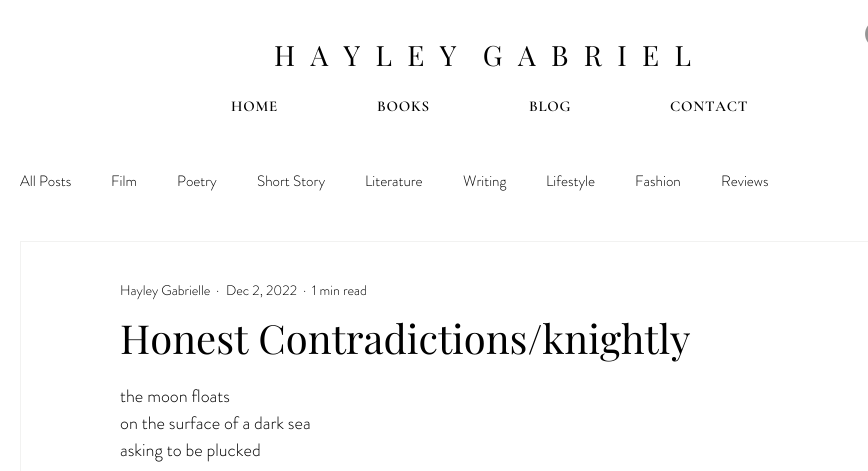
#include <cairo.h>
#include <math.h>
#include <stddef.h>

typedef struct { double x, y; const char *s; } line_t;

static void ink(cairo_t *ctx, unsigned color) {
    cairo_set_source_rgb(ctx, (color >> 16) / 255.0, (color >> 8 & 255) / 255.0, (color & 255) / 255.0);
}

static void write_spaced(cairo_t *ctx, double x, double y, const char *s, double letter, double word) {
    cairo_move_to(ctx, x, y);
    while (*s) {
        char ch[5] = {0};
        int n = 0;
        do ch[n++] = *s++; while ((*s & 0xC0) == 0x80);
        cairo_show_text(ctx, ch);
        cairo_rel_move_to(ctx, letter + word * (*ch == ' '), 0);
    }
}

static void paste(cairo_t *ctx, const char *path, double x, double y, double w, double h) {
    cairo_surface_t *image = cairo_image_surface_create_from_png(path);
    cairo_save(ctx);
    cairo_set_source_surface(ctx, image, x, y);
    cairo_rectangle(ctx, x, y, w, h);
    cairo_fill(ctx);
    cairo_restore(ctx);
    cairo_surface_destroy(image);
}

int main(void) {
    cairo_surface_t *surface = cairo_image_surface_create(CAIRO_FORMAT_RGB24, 868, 471);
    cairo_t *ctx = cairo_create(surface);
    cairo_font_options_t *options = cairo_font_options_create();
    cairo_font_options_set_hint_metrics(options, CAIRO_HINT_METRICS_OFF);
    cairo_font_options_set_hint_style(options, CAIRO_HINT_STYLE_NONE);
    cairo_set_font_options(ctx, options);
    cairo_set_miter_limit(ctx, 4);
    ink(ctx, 0xFFFFFF);
    cairo_paint(ctx);
    paste(ctx, "media/1.png", 865, 25, 3, 18);
    cairo_select_font_face(ctx, "Playfair Display", CAIRO_FONT_SLANT_NORMAL, CAIRO_FONT_WEIGHT_NORMAL);
    cairo_set_font_size(ctx, 28);
    ink(ctx, 0x000000);
    write_spaced(ctx, 274, 66, "H A Y L E Y  G A B R I E L", 4.2, 0);
    cairo_select_font_face(ctx, "Cormorant Garamond SemiBold", CAIRO_FONT_SLANT_NORMAL, CAIRO_FONT_WEIGHT_NORMAL);
    cairo_set_font_size(ctx, 15);
    {
        static const line_t items[] = {
            {231, 111, "HOME"},
            {377, 111, "BOOKS"},
            {529, 111, "BLOG"},
            {670, 111, "CONTACT"},
        };
        for (size_t i = 0; i < sizeof items / sizeof *items; i++) {
            write_spaced(ctx, items[i].x, items[i].y, items[i].s, 0.75, 0);
        }
    }
    cairo_select_font_face(ctx, "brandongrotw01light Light", CAIRO_FONT_SLANT_NORMAL, CAIRO_FONT_WEIGHT_NORMAL);
    {
        static const line_t items[] = {
            {20, 186, "All Posts"},
            {111, 186, "Film"},
            {177, 186, "Poetry"},
            {257, 186, "Short Story"},
            {365, 186, "Literature"},
            {463, 186, "Writing"},
            {546, 186, "Lifestyle"},
            {635, 186, "Fashion"},
            {721, 186, "Reviews"},
        };
        for (size_t i = 0; i < sizeof items / sizeof *items; i++) {
            cairo_move_to(ctx, items[i].x, items[i].y);
            cairo_show_text(ctx, items[i].s);
        }
    }
    cairo_rectangle(ctx, 20.5, 241.5, 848, 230);
    ink(ctx, 0xF2F2F1);
    cairo_set_line_width(ctx, 1);
    cairo_stroke(ctx);
    cairo_set_font_size(ctx, 14);
    ink(ctx, 0x000000);
    {
        static const line_t items[] = {
            {120, 295, "Hayley Gabrielle"},
            {216, 295, "·"},
            {226, 295, "Dec 2, 2022"},
            {303, 295, "·"},
            {312, 295, "1 min read"},
        };
        for (size_t i = 0; i < sizeof items / sizeof *items; i++) {
            cairo_move_to(ctx, items[i].x, items[i].y);
            cairo_show_text(ctx, items[i].s);
        }
    }
    cairo_select_font_face(ctx, "Playfair Display", CAIRO_FONT_SLANT_NORMAL, CAIRO_FONT_WEIGHT_NORMAL);
    cairo_set_font_size(ctx, 40);
    cairo_move_to(ctx, 120, 354);
    cairo_show_text(ctx, "Honest Contradictions/knightly");
    cairo_select_font_face(ctx, "brandongrotw01light Light", CAIRO_FONT_SLANT_NORMAL, CAIRO_FONT_WEIGHT_NORMAL);
    cairo_set_font_size(ctx, 18);
    {
        static const line_t items[] = {
            {120, 402, "the moon floats"},
            {120, 429, "on the surface of a dark sea"},
            {120, 456, "asking to be plucked"},
        };
        for (size_t i = 0; i < sizeof items / sizeof *items; i++) {
            cairo_move_to(ctx, items[i].x, items[i].y);
            cairo_show_text(ctx, items[i].s);
        }
    }
    cairo_surface_write_to_png(surface, "image.png");
    cairo_font_options_destroy(options);
    cairo_destroy(ctx);
    cairo_surface_destroy(surface);
    return 0;
}
